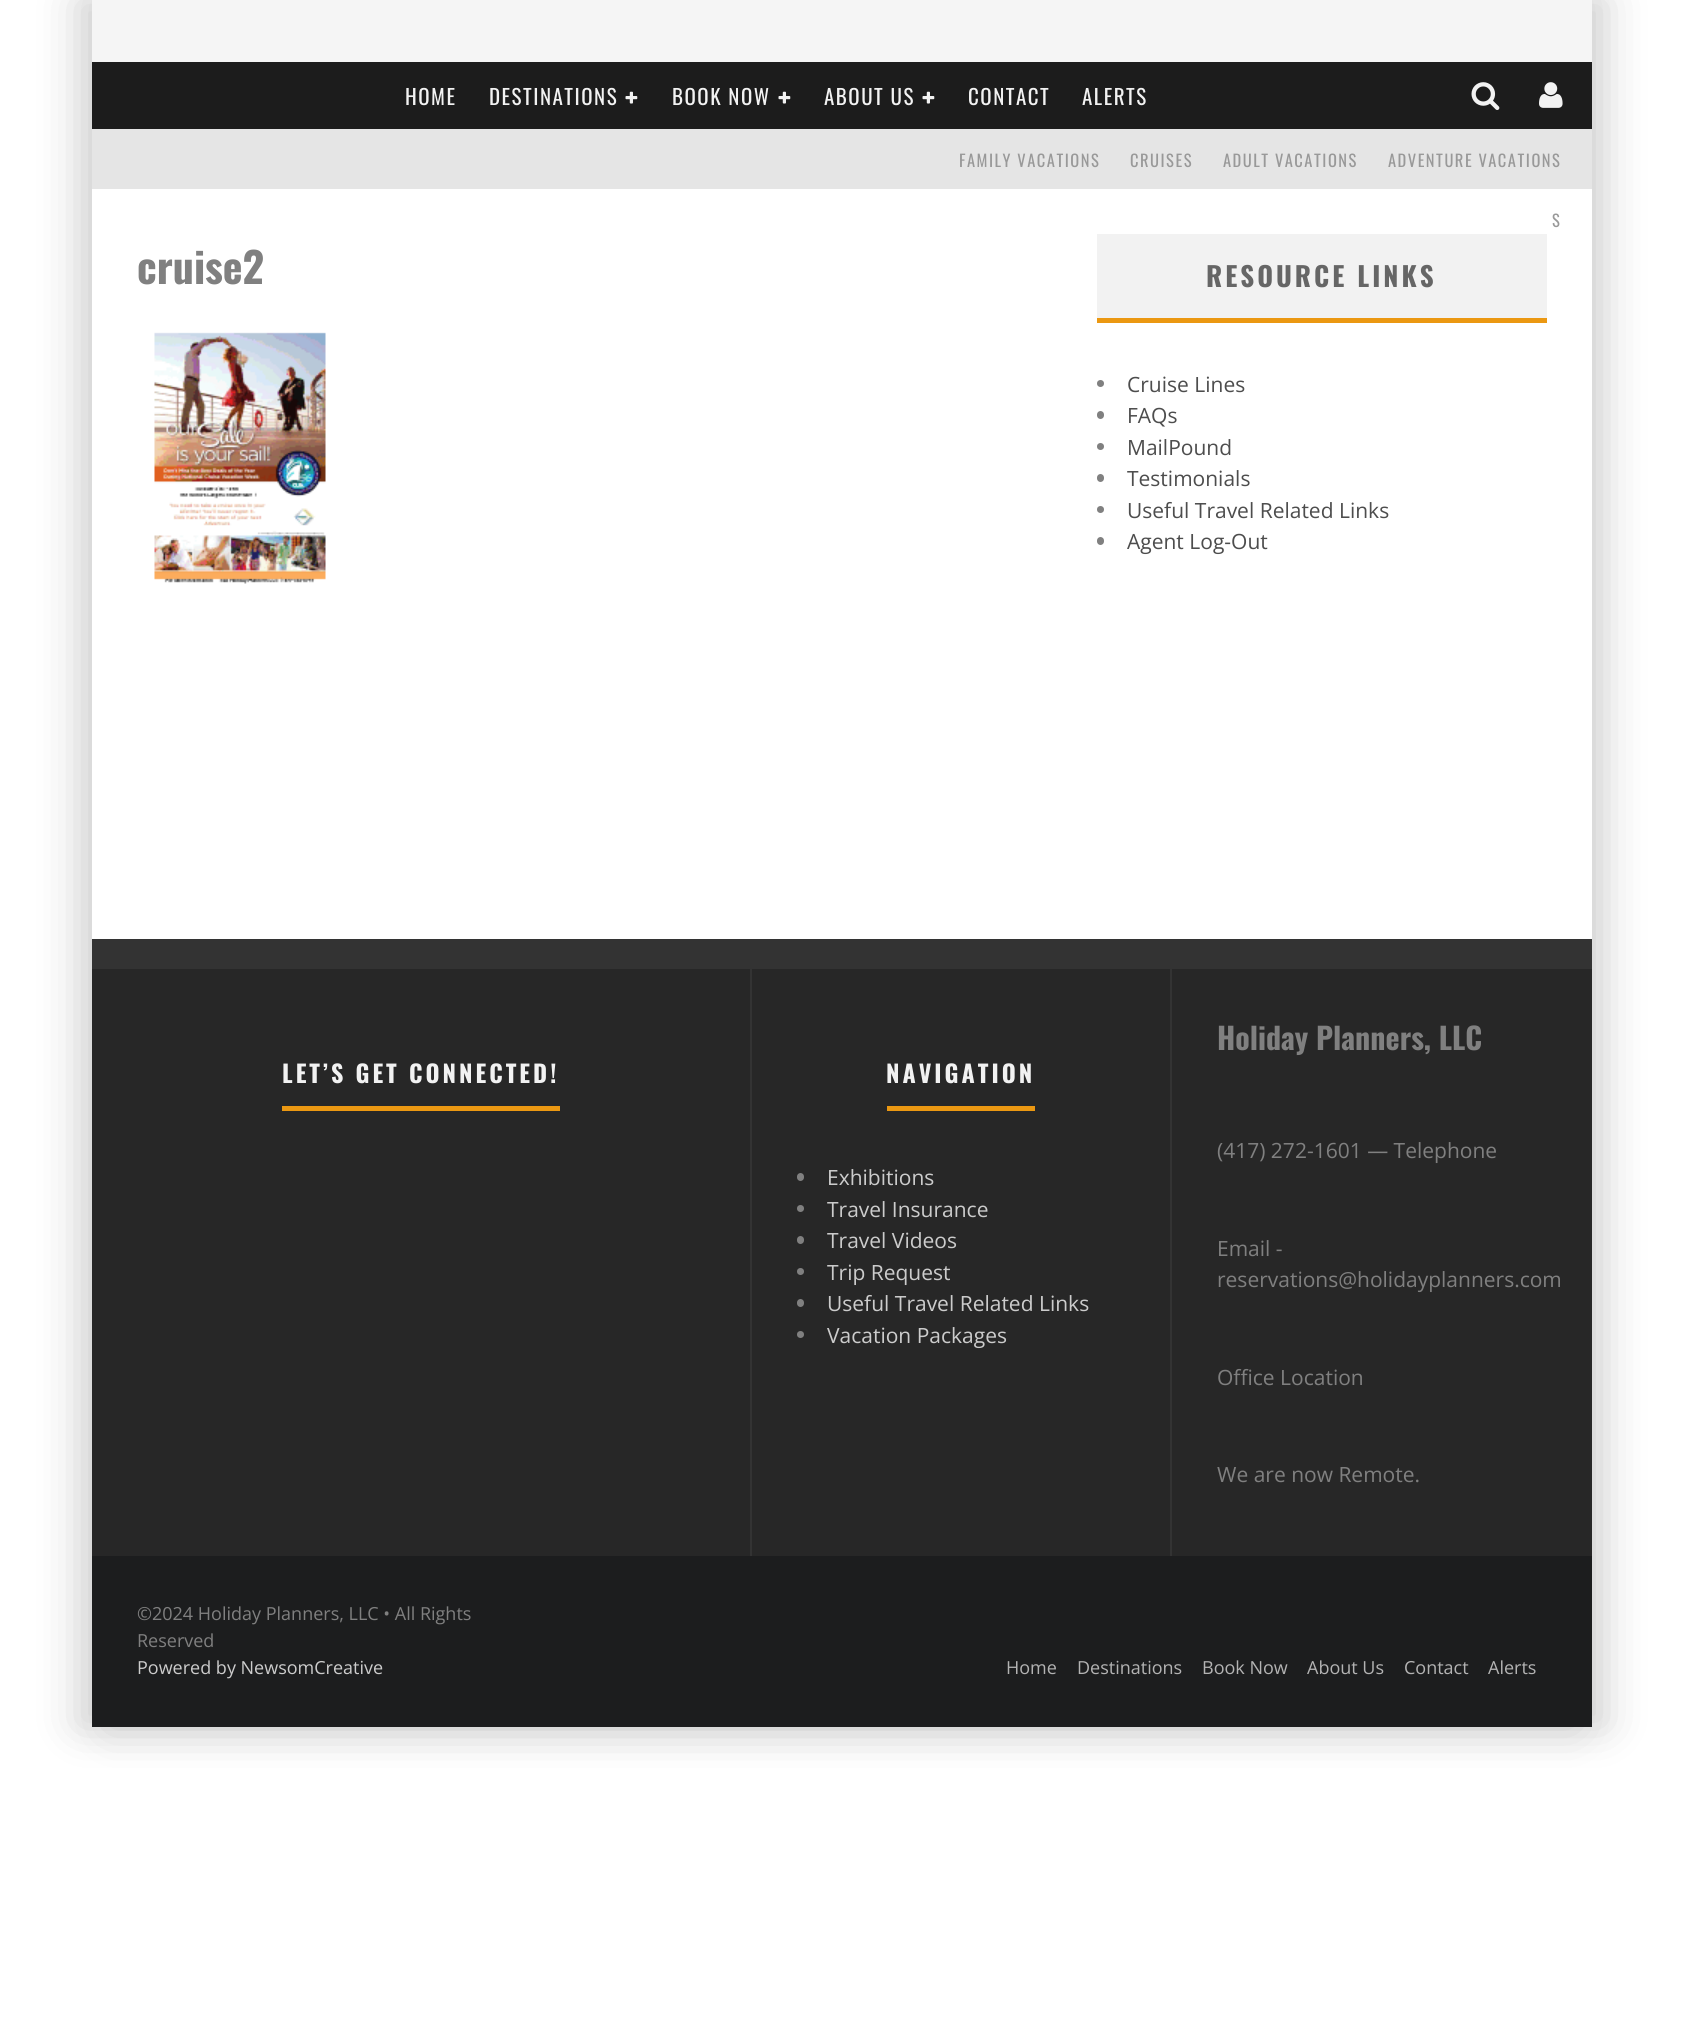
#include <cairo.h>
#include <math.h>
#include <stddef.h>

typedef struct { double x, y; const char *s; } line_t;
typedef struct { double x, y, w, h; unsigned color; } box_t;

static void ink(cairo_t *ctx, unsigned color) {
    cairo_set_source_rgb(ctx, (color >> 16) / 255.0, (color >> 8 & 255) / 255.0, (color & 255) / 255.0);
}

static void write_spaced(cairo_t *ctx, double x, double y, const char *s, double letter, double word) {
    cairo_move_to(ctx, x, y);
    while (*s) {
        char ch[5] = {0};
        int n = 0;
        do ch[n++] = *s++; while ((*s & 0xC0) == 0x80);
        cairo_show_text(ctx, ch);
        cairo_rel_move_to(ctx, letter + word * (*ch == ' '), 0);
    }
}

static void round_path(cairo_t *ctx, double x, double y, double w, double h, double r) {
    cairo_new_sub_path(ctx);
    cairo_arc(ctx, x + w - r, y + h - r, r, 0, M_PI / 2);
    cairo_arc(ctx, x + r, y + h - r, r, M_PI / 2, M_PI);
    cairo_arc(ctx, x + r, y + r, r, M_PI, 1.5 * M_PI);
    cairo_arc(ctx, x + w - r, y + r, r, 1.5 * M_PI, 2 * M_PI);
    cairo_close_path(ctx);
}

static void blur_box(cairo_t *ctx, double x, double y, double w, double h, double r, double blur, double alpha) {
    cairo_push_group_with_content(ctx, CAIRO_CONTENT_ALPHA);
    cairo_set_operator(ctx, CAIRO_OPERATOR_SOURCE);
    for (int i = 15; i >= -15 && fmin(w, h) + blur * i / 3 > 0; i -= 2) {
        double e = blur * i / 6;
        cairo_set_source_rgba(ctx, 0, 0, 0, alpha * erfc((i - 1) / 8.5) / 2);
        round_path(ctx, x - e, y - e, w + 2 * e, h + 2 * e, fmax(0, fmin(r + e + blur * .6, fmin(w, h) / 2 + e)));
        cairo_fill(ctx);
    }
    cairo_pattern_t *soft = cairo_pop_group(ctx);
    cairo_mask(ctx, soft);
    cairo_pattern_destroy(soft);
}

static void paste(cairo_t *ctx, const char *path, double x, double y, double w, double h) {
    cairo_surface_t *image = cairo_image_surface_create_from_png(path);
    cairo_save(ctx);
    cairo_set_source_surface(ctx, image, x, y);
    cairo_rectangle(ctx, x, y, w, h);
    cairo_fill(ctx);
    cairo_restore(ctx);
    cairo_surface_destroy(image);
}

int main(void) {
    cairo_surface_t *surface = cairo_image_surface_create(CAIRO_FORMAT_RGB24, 1683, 2019);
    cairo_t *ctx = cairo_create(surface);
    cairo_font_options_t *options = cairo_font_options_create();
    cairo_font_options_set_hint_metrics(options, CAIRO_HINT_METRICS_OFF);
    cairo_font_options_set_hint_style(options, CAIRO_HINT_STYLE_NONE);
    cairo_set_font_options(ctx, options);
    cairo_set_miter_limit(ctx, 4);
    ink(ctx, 0xFFFFFF);
    cairo_paint(ctx);
    ink(ctx, 0x000000);
    blur_box(ctx, 77, 0, 1500, 1727, 0, 22.5, 0.15);
    blur_box(ctx, 107, 0, 1500, 1727, 0, 22.5, 0.15);
    ink(ctx, 0xF5F5F5);
    cairo_rectangle(ctx, 92, 0, 1500, 62);
    cairo_fill(ctx);
    ink(ctx, 0x1C1C1C);
    cairo_rectangle(ctx, 92, 62, 1500, 67);
    cairo_fill(ctx);
    cairo_select_font_face(ctx, "Oswald", CAIRO_FONT_SLANT_NORMAL, CAIRO_FONT_WEIGHT_NORMAL);
    cairo_set_font_size(ctx, 21);
    ink(ctx, 0xF2F2F2);
    write_spaced(ctx, 405, 105, "HOME", 1.5, 0);
    write_spaced(ctx, 489, 105, "DESTINATIONS", 1.5, 0);
    paste(ctx, "media/1.png", 625, 91, 13, 13);
    write_spaced(ctx, 672, 105, "BOOK NOW", 1.5, 0);
    paste(ctx, "media/1.png", 778, 91, 13, 13);
    write_spaced(ctx, 824, 105, "ABOUT US", 1.5, 0);
    paste(ctx, "media/1.png", 922, 91, 13, 13);
    write_spaced(ctx, 968, 105, "CONTACT", 1.5, 0);
    write_spaced(ctx, 1082, 105, "ALERTS", 1.5, 0);
    paste(ctx, "media/2.png", 1471, 82, 29, 28);
    paste(ctx, "media/3.png", 1539, 82, 24, 26);
    ink(ctx, 0xE5E5E5);
    cairo_rectangle(ctx, 92, 129, 1500, 60);
    cairo_fill(ctx);
    cairo_set_font_size(ctx, 16.5);
    ink(ctx, 0x999999);
    {
        static const line_t items[] = {
            {959, 167, "FAMILY VACATIONS"},
            {1130, 167, "CRUISES"},
            {1223, 167, "ADULT VACATIONS"},
            {1388, 167, "ADVENTURE VACATIONS"},
        };
        for (size_t i = 0; i < sizeof items / sizeof *items; i++) {
            write_spaced(ctx, items[i].x, items[i].y, items[i].s, 1.5, 0);
        }
    }
    ink(ctx, 0xFFFFFF);
    cairo_rectangle(ctx, 92, 189, 1500, 750);
    cairo_fill(ctx);
    ink(ctx, 0x999999);
    write_spaced(ctx, 1552, 227, "S", 1.5, 0);
    cairo_select_font_face(ctx, "Oswald", CAIRO_FONT_SLANT_NORMAL, CAIRO_FONT_WEIGHT_BOLD);
    cairo_set_font_size(ctx, 42);
    ink(ctx, 0x808080);
    cairo_move_to(ctx, 137, 284);
    cairo_show_text(ctx, "cruise2");
    paste(ctx, "media/4.png", 154, 332, 172, 252);
    ink(ctx, 0xF2F2F2);
    cairo_rectangle(ctx, 1097, 234, 450, 84);
    cairo_fill(ctx);
    ink(ctx, 0xEB9812);
    cairo_rectangle(ctx, 1097, 318, 450, 5);
    cairo_fill(ctx);
    cairo_set_font_size(ctx, 27);
    ink(ctx, 0x666666);
    write_spaced(ctx, 1206, 287, "RESOURCE LINKS", 3, 0);
    ink(ctx, 0x808080);
    cairo_new_path(ctx);
    cairo_arc(ctx, 1100.5, 383.5, 3.5, 0, 2 * M_PI);
    cairo_fill(ctx);
    cairo_select_font_face(ctx, "Open Sans", CAIRO_FONT_SLANT_NORMAL, CAIRO_FONT_WEIGHT_NORMAL);
    cairo_set_font_size(ctx, 21);
    ink(ctx, 0x4D4D4D);
    cairo_move_to(ctx, 1127, 392);
    cairo_show_text(ctx, "Cruise Lines");
    ink(ctx, 0x808080);
    round_path(ctx, 1097, 411, 7, 8, 3.5);
    cairo_fill(ctx);
    ink(ctx, 0x4D4D4D);
    cairo_move_to(ctx, 1127, 423);
    cairo_show_text(ctx, "FAQs");
    ink(ctx, 0x808080);
    cairo_new_path(ctx);
    cairo_arc(ctx, 1100.5, 446.5, 3.5, 0, 2 * M_PI);
    cairo_fill(ctx);
    ink(ctx, 0x4D4D4D);
    cairo_move_to(ctx, 1127, 455);
    cairo_show_text(ctx, "MailPound");
    ink(ctx, 0x808080);
    round_path(ctx, 1097, 474, 7, 8, 3.5);
    cairo_fill(ctx);
    ink(ctx, 0x4D4D4D);
    cairo_move_to(ctx, 1127, 486);
    cairo_show_text(ctx, "Testimonials");
    ink(ctx, 0x808080);
    cairo_new_path(ctx);
    cairo_arc(ctx, 1100.5, 509.5, 3.5, 0, 2 * M_PI);
    cairo_fill(ctx);
    ink(ctx, 0x4D4D4D);
    cairo_move_to(ctx, 1127, 518);
    cairo_show_text(ctx, "Useful Travel Related Links");
    ink(ctx, 0x808080);
    round_path(ctx, 1097, 537, 7, 8, 3.5);
    cairo_fill(ctx);
    ink(ctx, 0x4D4D4D);
    cairo_move_to(ctx, 1127, 549);
    cairo_show_text(ctx, "Agent Log-Out");
    {
        static const box_t items[] = {
            {92, 969, 1500, 587, 0x272727},
            {92, 939, 1500, 30, 0x333333},
            {750, 969, 2, 587, 0x333333},
        };
        for (size_t i = 0; i < sizeof items / sizeof *items; i++) {
            ink(ctx, items[i].color);
            cairo_rectangle(ctx, items[i].x, items[i].y, items[i].w, items[i].h);
            cairo_fill(ctx);
        }
    }
    cairo_select_font_face(ctx, "Oswald", CAIRO_FONT_SLANT_NORMAL, CAIRO_FONT_WEIGHT_BOLD);
    cairo_set_font_size(ctx, 24);
    ink(ctx, 0xF2F2F2);
    write_spaced(ctx, 282, 1083, "LET’S GET CONNECTED!", 3, 0);
    ink(ctx, 0xEB9812);
    cairo_rectangle(ctx, 282, 1106, 278, 5);
    cairo_fill(ctx);
    ink(ctx, 0x333333);
    cairo_rectangle(ctx, 1170, 969, 2, 587);
    cairo_fill(ctx);
    ink(ctx, 0xF2F2F2);
    write_spaced(ctx, 886, 1083, "NAVIGATION", 3, 0);
    ink(ctx, 0xEB9812);
    cairo_rectangle(ctx, 887, 1106, 148, 5);
    cairo_fill(ctx);
    ink(ctx, 0x808080);
    round_path(ctx, 797, 1173, 7, 8, 3.5);
    cairo_fill(ctx);
    cairo_select_font_face(ctx, "Open Sans", CAIRO_FONT_SLANT_NORMAL, CAIRO_FONT_WEIGHT_NORMAL);
    cairo_set_font_size(ctx, 21);
    ink(ctx, 0xCCCCCC);
    cairo_move_to(ctx, 827, 1185);
    cairo_show_text(ctx, "Exhibitions");
    ink(ctx, 0x808080);
    cairo_new_path(ctx);
    cairo_arc(ctx, 800.5, 1208.5, 3.5, 0, 2 * M_PI);
    cairo_fill(ctx);
    ink(ctx, 0xCCCCCC);
    cairo_move_to(ctx, 827, 1217);
    cairo_show_text(ctx, "Travel Insurance");
    ink(ctx, 0x808080);
    round_path(ctx, 797, 1236, 7, 8, 3.5);
    cairo_fill(ctx);
    ink(ctx, 0xCCCCCC);
    cairo_move_to(ctx, 827, 1248);
    cairo_show_text(ctx, "Travel Videos");
    ink(ctx, 0x808080);
    cairo_new_path(ctx);
    cairo_arc(ctx, 800.5, 1271.5, 3.5, 0, 2 * M_PI);
    cairo_fill(ctx);
    ink(ctx, 0xCCCCCC);
    cairo_move_to(ctx, 827, 1280);
    cairo_show_text(ctx, "Trip Request");
    ink(ctx, 0x808080);
    round_path(ctx, 797, 1299, 7, 8, 3.5);
    cairo_fill(ctx);
    ink(ctx, 0xCCCCCC);
    cairo_move_to(ctx, 827, 1311);
    cairo_show_text(ctx, "Useful Travel Related Links");
    ink(ctx, 0x808080);
    cairo_new_path(ctx);
    cairo_arc(ctx, 800.5, 1334.5, 3.5, 0, 2 * M_PI);
    cairo_fill(ctx);
    ink(ctx, 0xCCCCCC);
    cairo_move_to(ctx, 827, 1343);
    cairo_show_text(ctx, "Vacation Packages");
    cairo_select_font_face(ctx, "Oswald", CAIRO_FONT_SLANT_NORMAL, CAIRO_FONT_WEIGHT_BOLD);
    cairo_set_font_size(ctx, 30);
    ink(ctx, 0x808080);
    cairo_move_to(ctx, 1217, 1050);
    cairo_show_text(ctx, "Holiday Planners, LLC");
    cairo_select_font_face(ctx, "Open Sans", CAIRO_FONT_SLANT_NORMAL, CAIRO_FONT_WEIGHT_NORMAL);
    cairo_set_font_size(ctx, 21);
    {
        static const line_t items[] = {
            {1217, 1158, "(417) 272-1601 — Telephone"},
            {1217, 1256, "Email -"},
            {1217, 1287, "reservations@holidayplanners.com"},
            {1217, 1385, "Office Location"},
            {1217, 1482, "We are now Remote."},
        };
        for (size_t i = 0; i < sizeof items / sizeof *items; i++) {
            cairo_move_to(ctx, items[i].x, items[i].y);
            cairo_show_text(ctx, items[i].s);
        }
    }
    ink(ctx, 0x1C1D1E);
    cairo_rectangle(ctx, 92, 1556, 1500, 171);
    cairo_fill(ctx);
    cairo_set_font_size(ctx, 18);
    ink(ctx, 0x808080);
    cairo_move_to(ctx, 137, 1620);
    cairo_show_text(ctx, "©2024 Holiday Planners, LLC • All Rights");
    cairo_move_to(ctx, 137, 1647);
    cairo_show_text(ctx, "Reserved");
    ink(ctx, 0xCCCCCC);
    cairo_move_to(ctx, 137, 1674);
    cairo_show_text(ctx, "Powered by NewsomCreative");
    ink(ctx, 0xB3B3B3);
    {
        static const line_t items[] = {
            {1006, 1674, "Home"},
            {1077, 1674, "Destinations"},
            {1202, 1674, "Book Now"},
            {1307, 1674, "About Us"},
            {1404, 1674, "Contact"},
            {1488, 1674, "Alerts"},
        };
        for (size_t i = 0; i < sizeof items / sizeof *items; i++) {
            cairo_move_to(ctx, items[i].x, items[i].y);
            cairo_show_text(ctx, items[i].s);
        }
    }
    cairo_surface_write_to_png(surface, "image.png");
    cairo_font_options_destroy(options);
    cairo_destroy(ctx);
    cairo_surface_destroy(surface);
    return 0;
}
